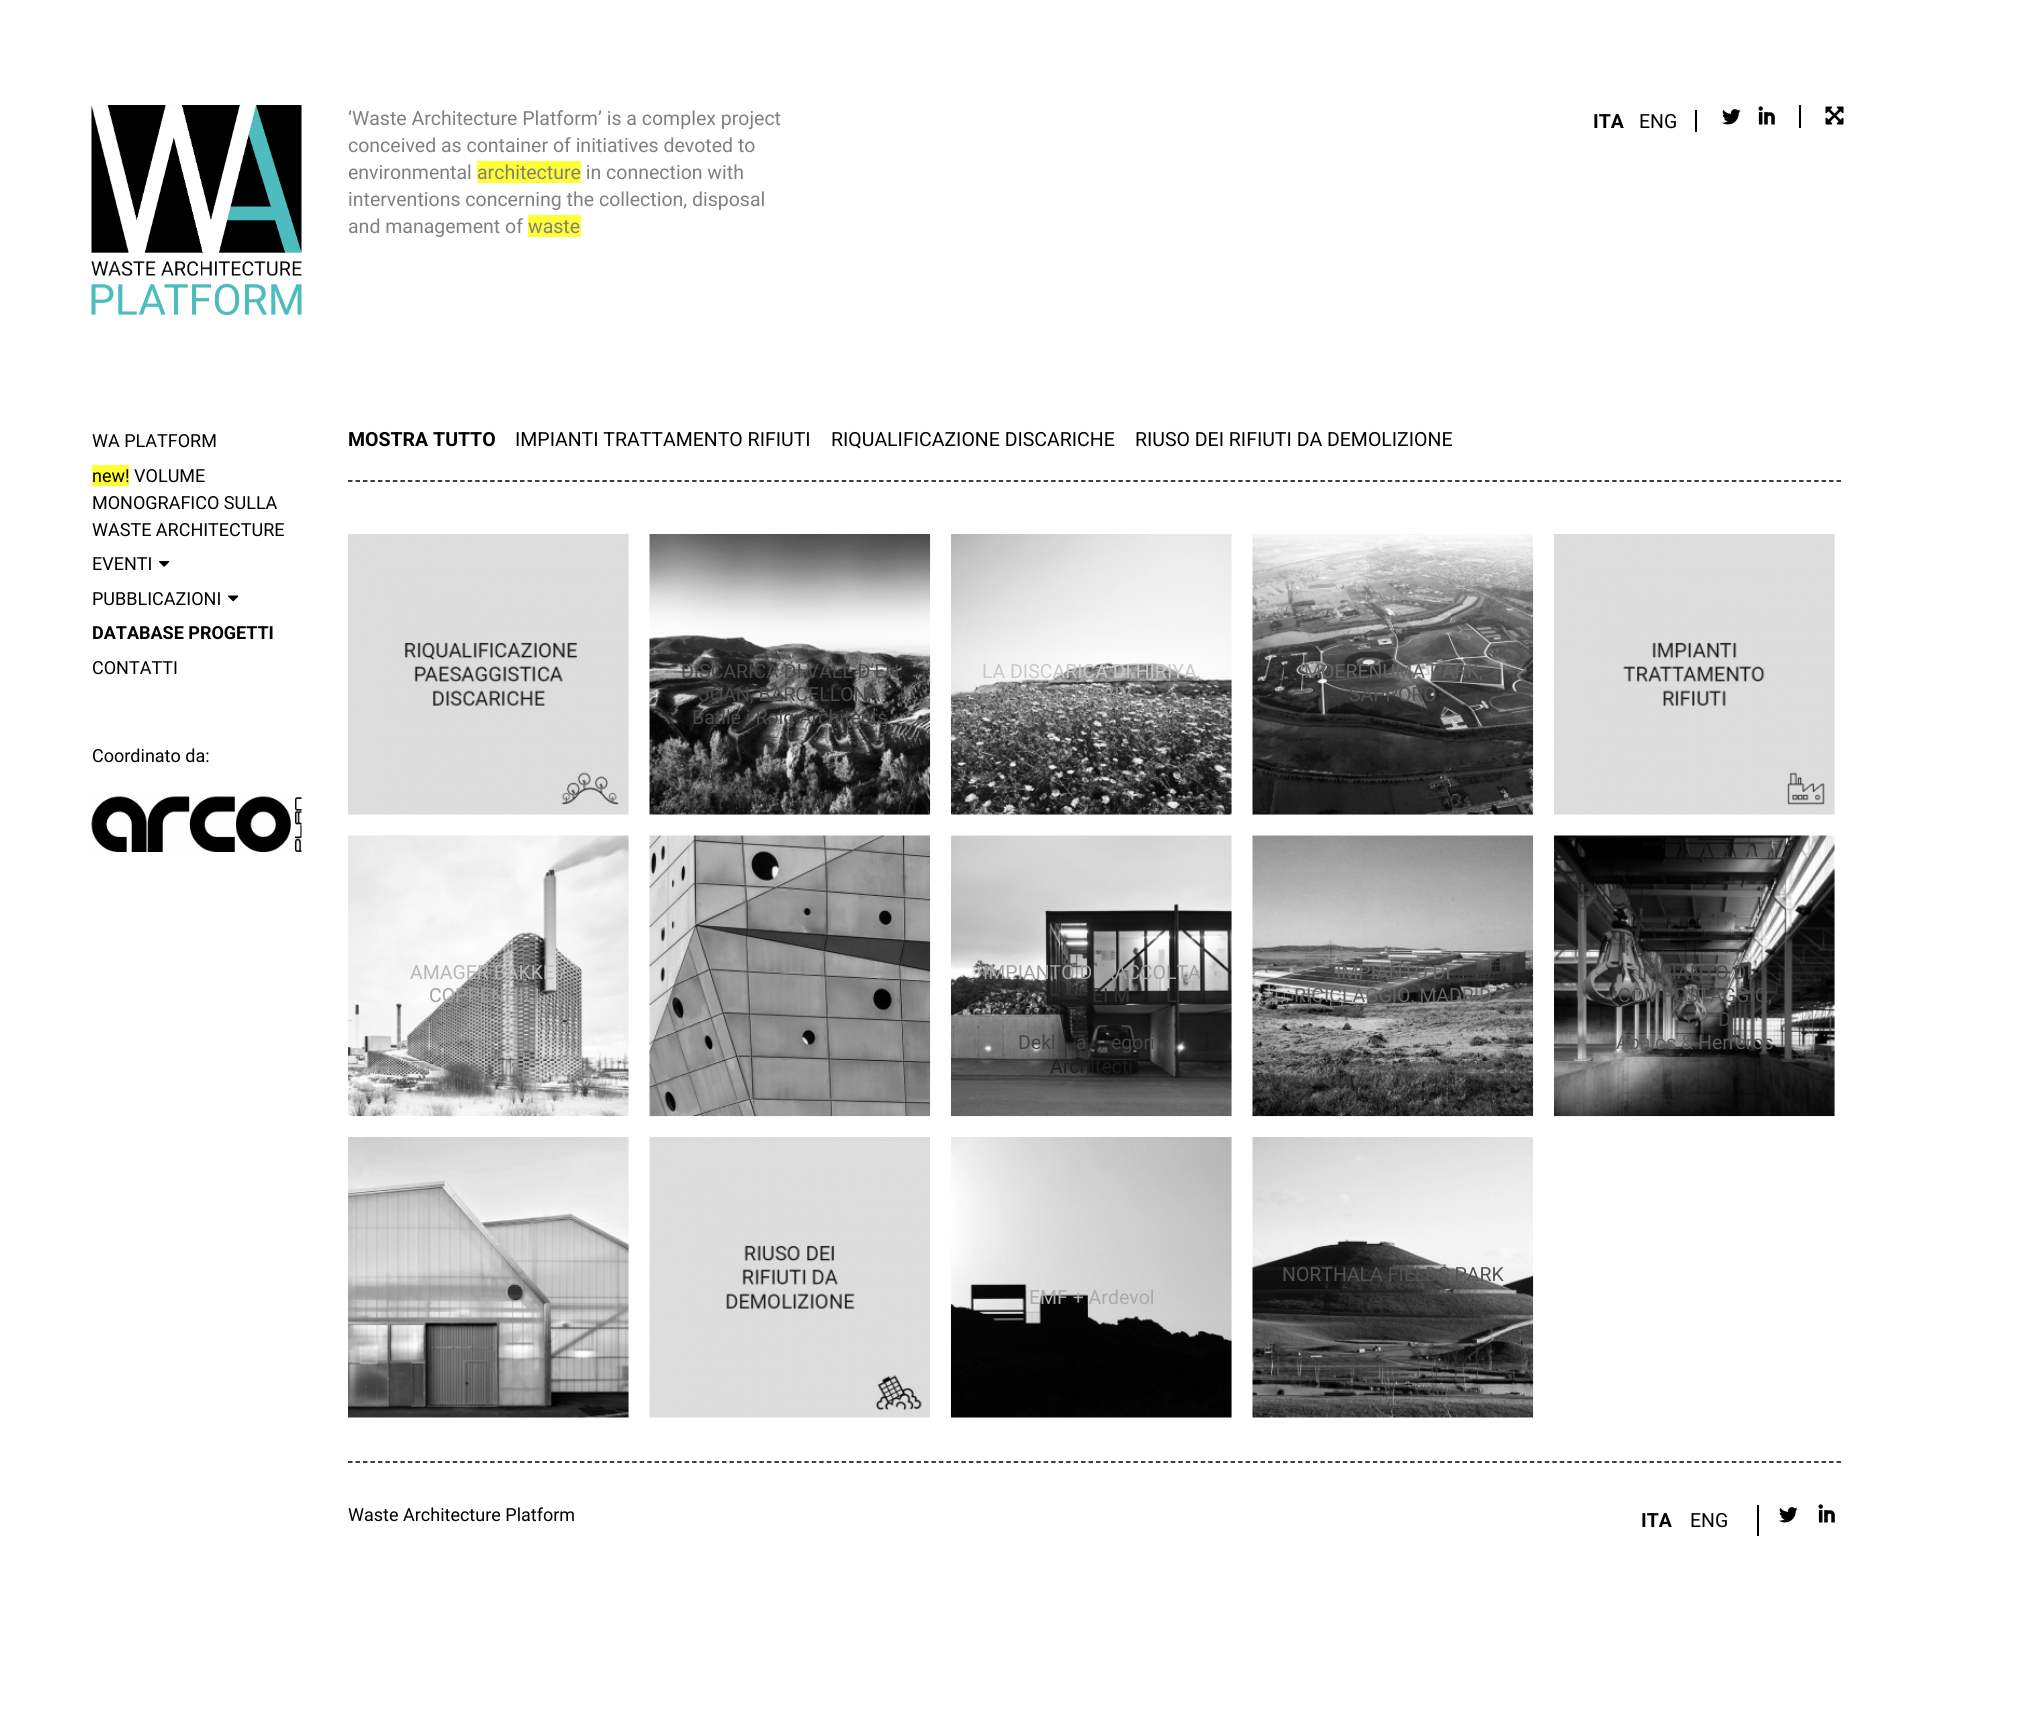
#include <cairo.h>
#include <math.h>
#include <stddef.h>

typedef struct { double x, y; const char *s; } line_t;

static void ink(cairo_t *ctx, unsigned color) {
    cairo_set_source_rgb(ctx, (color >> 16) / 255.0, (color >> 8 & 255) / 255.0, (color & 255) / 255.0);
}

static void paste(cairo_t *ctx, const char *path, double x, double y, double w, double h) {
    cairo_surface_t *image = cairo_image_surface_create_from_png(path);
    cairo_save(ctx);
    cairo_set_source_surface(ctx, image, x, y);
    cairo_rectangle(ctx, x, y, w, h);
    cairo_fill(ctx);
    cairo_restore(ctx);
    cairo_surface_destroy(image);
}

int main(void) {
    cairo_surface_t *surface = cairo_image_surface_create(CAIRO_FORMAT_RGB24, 2033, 1717);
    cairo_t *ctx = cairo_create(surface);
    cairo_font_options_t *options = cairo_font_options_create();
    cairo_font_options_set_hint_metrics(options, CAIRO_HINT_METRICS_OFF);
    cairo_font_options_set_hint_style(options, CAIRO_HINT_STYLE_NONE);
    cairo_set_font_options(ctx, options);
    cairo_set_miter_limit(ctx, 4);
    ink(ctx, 0xFFFFFF);
    cairo_paint(ctx);
    paste(ctx, "media/1.png", 91, 105, 211, 210);
    cairo_select_font_face(ctx, "Roboto", CAIRO_FONT_SLANT_NORMAL, CAIRO_FONT_WEIGHT_NORMAL);
    cairo_set_font_size(ctx, 19.5);
    ink(ctx, 0x808080);
    {
        static const line_t items[] = {
            {348, 125, "‘Waste Architecture Platform’ is a complex project"},
            {348, 152, "conceived as container of initiatives devoted to"},
            {348, 179, "environmental"},
        };
        for (size_t i = 0; i < sizeof items / sizeof *items; i++) {
            cairo_move_to(ctx, items[i].x, items[i].y);
            cairo_show_text(ctx, items[i].s);
        }
    }
    ink(ctx, 0xFFFF35);
    cairo_rectangle(ctx, 477, 161, 104, 22);
    cairo_fill(ctx);
    ink(ctx, 0x808080);
    {
        static const line_t items[] = {
            {477, 179, "architecture in connection with"},
            {348, 206, "interventions concerning the collection, disposal"},
            {348, 233, "and management of"},
        };
        for (size_t i = 0; i < sizeof items / sizeof *items; i++) {
            cairo_move_to(ctx, items[i].x, items[i].y);
            cairo_show_text(ctx, items[i].s);
        }
    }
    ink(ctx, 0xFFFF35);
    cairo_rectangle(ctx, 528, 215, 53, 22);
    cairo_fill(ctx);
    ink(ctx, 0x808080);
    cairo_move_to(ctx, 528, 233);
    cairo_show_text(ctx, "waste");
    ink(ctx, 0x000000);
    cairo_rectangle(ctx, 1695, 110, 2, 22);
    cairo_fill(ctx);
    cairo_select_font_face(ctx, "Roboto", CAIRO_FONT_SLANT_NORMAL, CAIRO_FONT_WEIGHT_BOLD);
    cairo_move_to(ctx, 1593, 128);
    cairo_show_text(ctx, "ITA");
    cairo_select_font_face(ctx, "Roboto", CAIRO_FONT_SLANT_NORMAL, CAIRO_FONT_WEIGHT_NORMAL);
    cairo_move_to(ctx, 1639, 128);
    cairo_show_text(ctx, "ENG");
    cairo_select_font_face(ctx, "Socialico", CAIRO_FONT_SLANT_NORMAL, CAIRO_FONT_WEIGHT_NORMAL);
    cairo_set_font_size(ctx, 32);
    cairo_move_to(ctx, 1718, 128);
    cairo_show_text(ctx, "L");
    cairo_move_to(ctx, 1757, 128);
    cairo_show_text(ctx, "I");
    cairo_rectangle(ctx, 1799, 105, 2, 23);
    cairo_fill(ctx);
    paste(ctx, "media/2.png", 1825, 106, 19, 19);
    cairo_select_font_face(ctx, "Roboto", CAIRO_FONT_SLANT_NORMAL, CAIRO_FONT_WEIGHT_NORMAL);
    cairo_set_font_size(ctx, 18);
    cairo_move_to(ctx, 92, 447);
    cairo_show_text(ctx, "WA PLATFORM");
    ink(ctx, 0xFFFF35);
    cairo_rectangle(ctx, 92, 465, 37, 21);
    cairo_fill(ctx);
    ink(ctx, 0x000000);
    {
        static const line_t items[] = {
            {92, 482, "new! VOLUME"},
            {92, 509, "MONOGRAFICO SULLA"},
            {92, 536, "WASTE ARCHITECTURE"},
            {92, 570, "EVENTI"},
        };
        for (size_t i = 0; i < sizeof items / sizeof *items; i++) {
            cairo_move_to(ctx, items[i].x, items[i].y);
            cairo_show_text(ctx, items[i].s);
        }
    }
    paste(ctx, "media/3.png", 159, 561, 11, 6);
    cairo_move_to(ctx, 92, 605);
    cairo_show_text(ctx, "PUBBLICAZIONI");
    paste(ctx, "media/4.png", 228, 595, 11, 7);
    cairo_select_font_face(ctx, "Roboto", CAIRO_FONT_SLANT_NORMAL, CAIRO_FONT_WEIGHT_BOLD);
    cairo_move_to(ctx, 92, 639);
    cairo_show_text(ctx, "DATABASE PROGETTI");
    cairo_select_font_face(ctx, "Roboto", CAIRO_FONT_SLANT_NORMAL, CAIRO_FONT_WEIGHT_NORMAL);
    cairo_move_to(ctx, 92, 674);
    cairo_show_text(ctx, "CONTATTI");
    cairo_move_to(ctx, 92, 762);
    cairo_show_text(ctx, "Coordinato da:");
    paste(ctx, "media/5.png", 91, 796, 211, 56);
    cairo_new_path(ctx);
    cairo_move_to(ctx, 348, 481);
    cairo_line_to(ctx, 1843.5, 481);
    cairo_set_line_width(ctx, 1.5);
    cairo_set_dash(ctx, (double[]){4.5, 2.98}, 2, 0);
    cairo_stroke(ctx);
    cairo_select_font_face(ctx, "Roboto", CAIRO_FONT_SLANT_NORMAL, CAIRO_FONT_WEIGHT_BOLD);
    cairo_set_font_size(ctx, 19.5);
    cairo_move_to(ctx, 348, 446);
    cairo_show_text(ctx, "MOSTRA TUTTO");
    cairo_select_font_face(ctx, "Roboto", CAIRO_FONT_SLANT_NORMAL, CAIRO_FONT_WEIGHT_NORMAL);
    {
        static const line_t items[] = {
            {515, 446, "IMPIANTI TRATTAMENTO RIFIUTI"},
            {831, 446, "RIQUALIFICAZIONE DISCARICHE"},
            {1135, 446, "RIUSO DEI RIFIUTI DA DEMOLIZIONE"},
        };
        for (size_t i = 0; i < sizeof items / sizeof *items; i++) {
            cairo_move_to(ctx, items[i].x, items[i].y);
            cairo_show_text(ctx, items[i].s);
        }
    }
    paste(ctx, "media/6.png", 348, 534, 281, 281);
    paste(ctx, "media/7.png", 649, 534, 282, 281);
    ink(ctx, 0x4A4A4A);
    {
        static const line_t items[] = {
            {681, 678, "DISCARICA DI VALL D’EN"},
            {699, 701, "JOAN, BARCELLONA"},
            {692, 724, "Batlle i Roig Architects"},
        };
        for (size_t i = 0; i < sizeof items / sizeof *items; i++) {
            cairo_move_to(ctx, items[i].x, items[i].y);
            cairo_show_text(ctx, items[i].s);
        }
    }
    paste(ctx, "media/8.png", 951, 534, 281, 281);
    ink(ctx, 0xC8C8C8);
    cairo_move_to(ctx, 982, 678);
    cairo_show_text(ctx, "LA DISCARICA DI HIRIYA,");
    ink(ctx, 0x909090);
    cairo_move_to(ctx, 1051, 701);
    cairo_show_text(ctx, "TEL AVIV");
    paste(ctx, "media/9.png", 1252, 534, 282, 281);
    ink(ctx, 0x646464);
    cairo_move_to(ctx, 1304, 678);
    cairo_show_text(ctx, "MOERENUMA PARK,");
    ink(ctx, 0x535353);
    cairo_move_to(ctx, 1349, 701);
    cairo_show_text(ctx, "SAPPORO");
    paste(ctx, "media/10.png", 1554, 534, 281, 281);
    paste(ctx, "media/11.png", 348, 835, 281, 282);
    ink(ctx, 0xB7B7B7);
    cairo_move_to(ctx, 410, 979);
    cairo_show_text(ctx, "AMAGER BAKKE /");
    ink(ctx, 0xA1A1A1);
    cairo_move_to(ctx, 429, 1002);
    cairo_show_text(ctx, "COPPENHILL,");
    paste(ctx, "media/12.png", 649, 835, 282, 282);
    paste(ctx, "media/13.png", 951, 835, 281, 282);
    cairo_move_to(ctx, 983, 979);
    cairo_show_text(ctx, "IMPIANTO DI RACCOLTA");
    ink(ctx, 0x333333);
    cairo_move_to(ctx, 1092, 1002);
    cairo_show_text(ctx, "EI M");
    cairo_move_to(ctx, 1166, 1002);
    cairo_show_text(ctx, "L");
    ink(ctx, 0x444444);
    {
        static const line_t items[] = {
            {1018, 1049, "Dekl"},
            {1076, 1049, "a"},
            {1111, 1049, "egori"},
        };
        for (size_t i = 0; i < sizeof items / sizeof *items; i++) {
            cairo_move_to(ctx, items[i].x, items[i].y);
            cairo_show_text(ctx, items[i].s);
        }
    }
    ink(ctx, 0x1E1E1E);
    cairo_move_to(ctx, 1050, 1073);
    cairo_show_text(ctx, "Architecti");
    paste(ctx, "media/14.png", 1252, 835, 282, 282);
    ink(ctx, 0x646464);
    cairo_move_to(ctx, 1336, 979);
    cairo_show_text(ctx, "IMPIANTO DI");
    cairo_move_to(ctx, 1294, 1002);
    cairo_show_text(ctx, "RICICLAGGIO, MADRID");
    paste(ctx, "media/15.png", 1554, 835, 281, 282);
    ink(ctx, 0x4A4A4A);
    cairo_move_to(ctx, 1637, 979);
    cairo_show_text(ctx, "IMPIANTO DI");
    ink(ctx, 0x535353);
    cairo_move_to(ctx, 1618, 1002);
    cairo_show_text(ctx, "COMPOSTAGGIO,");
    ink(ctx, 0x4A4A4A);
    cairo_move_to(ctx, 1718, 1026);
    cairo_show_text(ctx, "D");
    ink(ctx, 0x5E5E5E);
    cairo_move_to(ctx, 1616, 1049);
    cairo_show_text(ctx, "Ábalos & Herreros");
    paste(ctx, "media/16.png", 348, 1137, 281, 281);
    paste(ctx, "media/17.png", 649, 1137, 281, 281);
    paste(ctx, "media/18.png", 1252, 1137, 282, 281);
    ink(ctx, 0x535353);
    cairo_move_to(ctx, 1282, 1281);
    cairo_show_text(ctx, "NORTHALA FIELDS PARK");
    paste(ctx, "media/19.png", 951, 1137, 281, 281);
    ink(ctx, 0xAAAAAA);
    cairo_move_to(ctx, 1029, 1304);
    cairo_show_text(ctx, "EMF + Ardevol");
    cairo_new_path(ctx);
    cairo_move_to(ctx, 348, 1462);
    cairo_line_to(ctx, 1843.5, 1462);
    ink(ctx, 0x000000);
    cairo_stroke(ctx);
    cairo_set_font_size(ctx, 18);
    cairo_move_to(ctx, 348, 1521);
    cairo_show_text(ctx, "Waste Architecture Platform");
    cairo_rectangle(ctx, 1757, 1505, 2, 31);
    cairo_fill(ctx);
    cairo_select_font_face(ctx, "Roboto", CAIRO_FONT_SLANT_NORMAL, CAIRO_FONT_WEIGHT_BOLD);
    cairo_set_font_size(ctx, 19.5);
    cairo_move_to(ctx, 1641, 1527);
    cairo_show_text(ctx, "ITA");
    cairo_select_font_face(ctx, "Roboto", CAIRO_FONT_SLANT_NORMAL, CAIRO_FONT_WEIGHT_NORMAL);
    cairo_move_to(ctx, 1690, 1527);
    cairo_show_text(ctx, "ENG");
    cairo_select_font_face(ctx, "Socialico", CAIRO_FONT_SLANT_NORMAL, CAIRO_FONT_WEIGHT_NORMAL);
    cairo_set_font_size(ctx, 32);
    cairo_move_to(ctx, 1775, 1526);
    cairo_show_text(ctx, "L");
    cairo_move_to(ctx, 1817, 1526);
    cairo_show_text(ctx, "I");
    cairo_surface_write_to_png(surface, "image.png");
    cairo_font_options_destroy(options);
    cairo_destroy(ctx);
    cairo_surface_destroy(surface);
    return 0;
}
